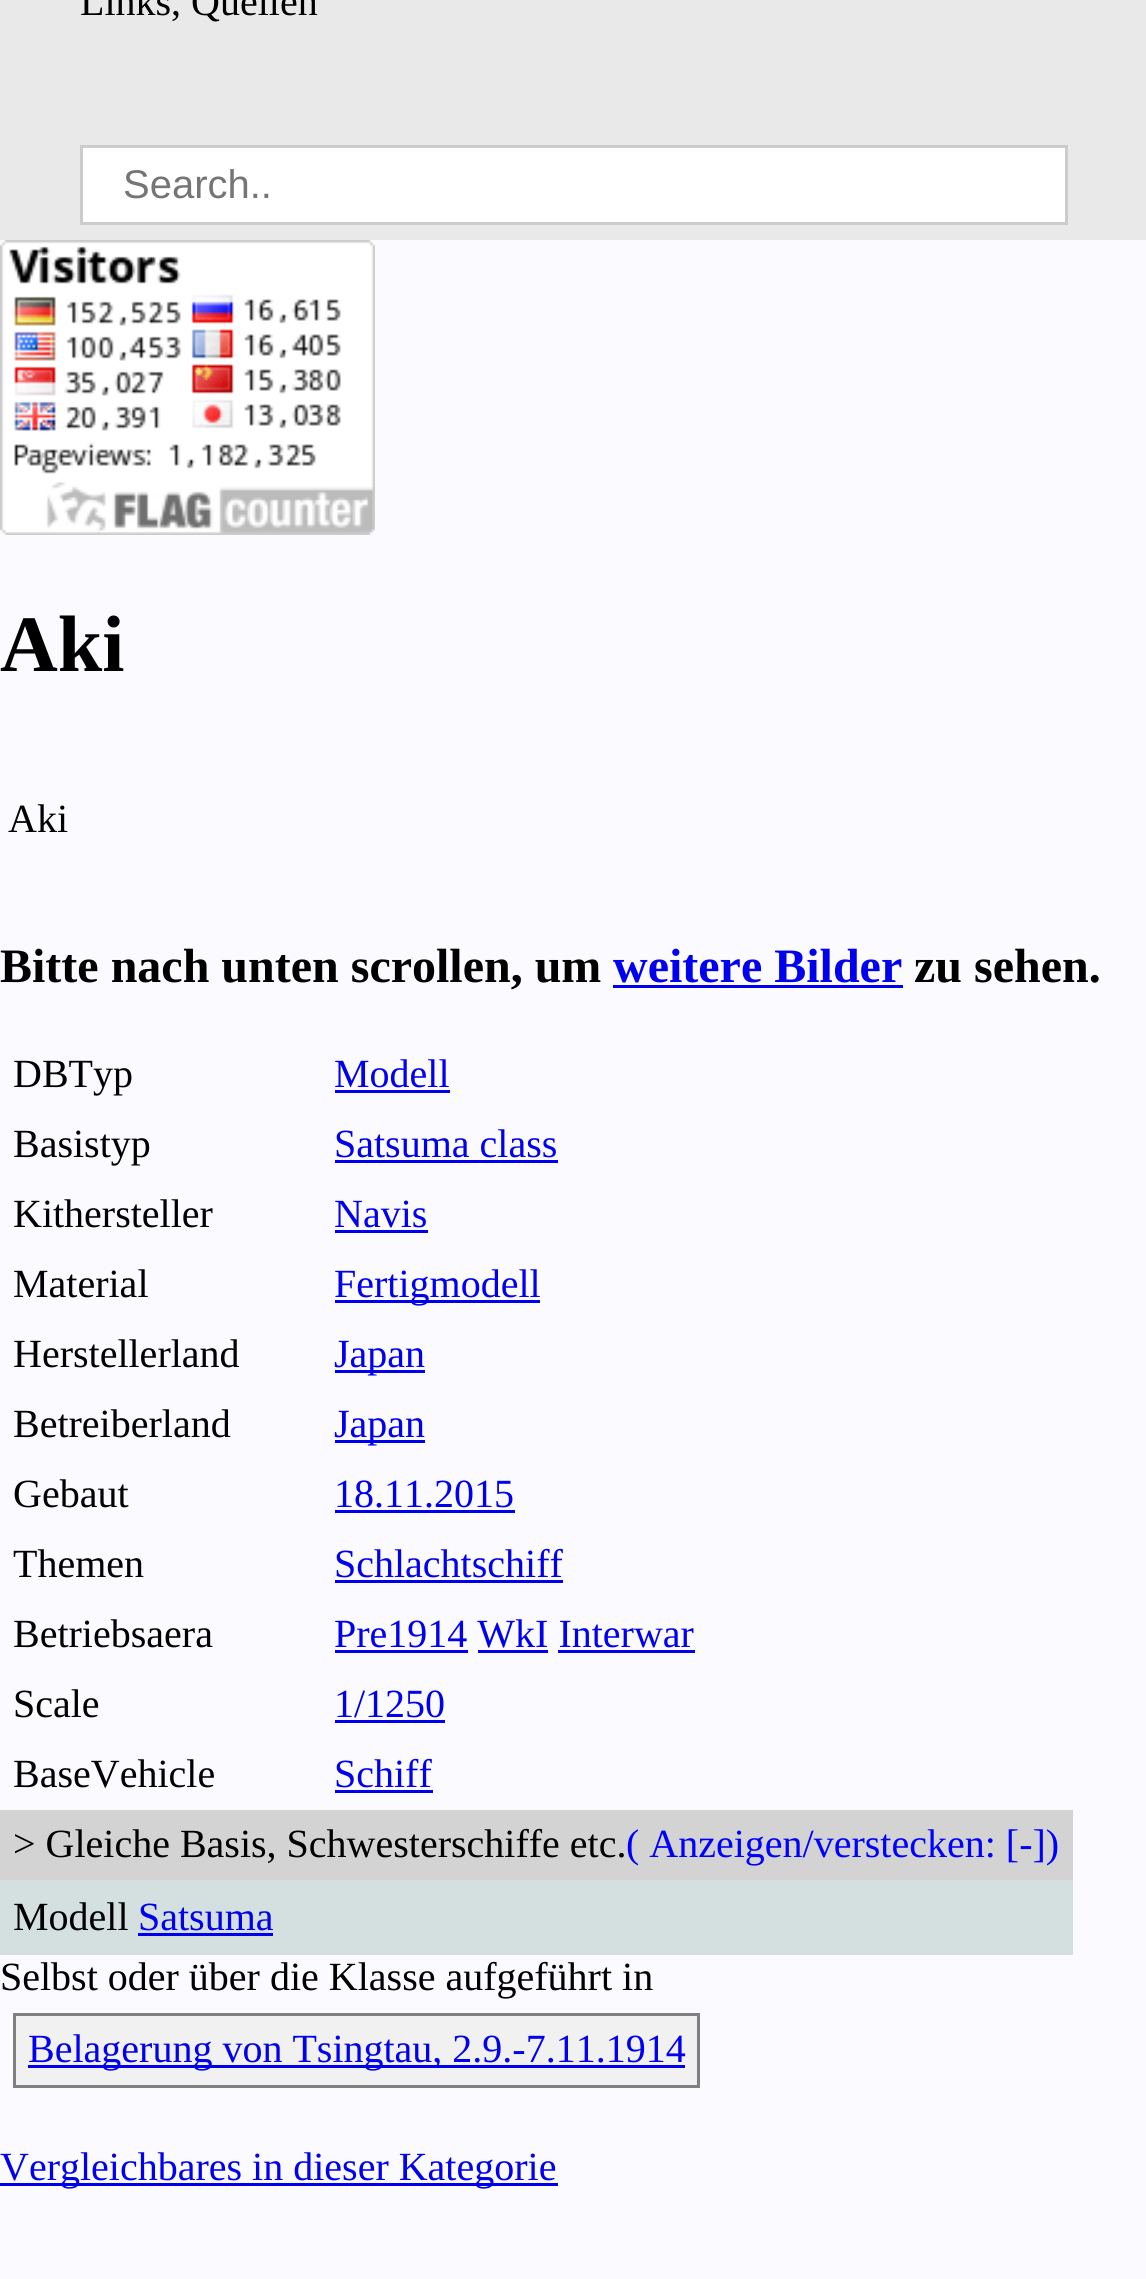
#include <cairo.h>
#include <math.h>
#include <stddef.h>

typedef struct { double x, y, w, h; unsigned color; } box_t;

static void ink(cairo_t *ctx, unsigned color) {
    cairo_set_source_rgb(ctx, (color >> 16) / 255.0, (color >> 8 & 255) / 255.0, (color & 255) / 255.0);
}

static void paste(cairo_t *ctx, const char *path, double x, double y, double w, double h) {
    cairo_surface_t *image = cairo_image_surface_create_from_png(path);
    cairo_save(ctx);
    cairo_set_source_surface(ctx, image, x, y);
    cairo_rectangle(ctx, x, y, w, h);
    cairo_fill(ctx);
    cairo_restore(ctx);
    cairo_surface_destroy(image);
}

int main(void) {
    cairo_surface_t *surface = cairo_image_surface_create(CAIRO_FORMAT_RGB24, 1146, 2279);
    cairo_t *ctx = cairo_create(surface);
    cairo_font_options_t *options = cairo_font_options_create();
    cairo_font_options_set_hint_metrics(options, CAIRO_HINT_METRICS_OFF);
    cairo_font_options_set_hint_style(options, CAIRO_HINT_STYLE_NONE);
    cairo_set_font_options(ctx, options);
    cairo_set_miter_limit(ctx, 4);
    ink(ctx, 0xFAFAFF);
    cairo_paint(ctx);
    ink(ctx, 0xE9E9E9);
    cairo_rectangle(ctx, 0, 0, 1146, 240);
    cairo_fill(ctx);
    cairo_select_font_face(ctx, "Liberation Serif", CAIRO_FONT_SLANT_NORMAL, CAIRO_FONT_WEIGHT_NORMAL);
    cairo_set_font_size(ctx, 40);
    ink(ctx, 0x000000);
    cairo_move_to(ctx, 80, 15);
    cairo_show_text(ctx, "Links, Quellen");
    ink(ctx, 0xFFFFFF);
    cairo_rectangle(ctx, 81.5, 146.5, 985, 77);
    cairo_fill_preserve(ctx);
    ink(ctx, 0xCCCCCC);
    cairo_set_line_width(ctx, 3);
    cairo_stroke(ctx);
    cairo_select_font_face(ctx, "Liberation Sans", CAIRO_FONT_SLANT_NORMAL, CAIRO_FONT_WEIGHT_NORMAL);
    ink(ctx, 0x757575);
    cairo_move_to(ctx, 123, 198);
    cairo_show_text(ctx, "Search..");
    paste(ctx, "media/1.png", 0, 240, 375, 295);
    cairo_select_font_face(ctx, "Liberation Serif", CAIRO_FONT_SLANT_NORMAL, CAIRO_FONT_WEIGHT_BOLD);
    cairo_set_font_size(ctx, 80);
    ink(ctx, 0x000000);
    cairo_move_to(ctx, 0, 671);
    cairo_show_text(ctx, "Aki");
    cairo_select_font_face(ctx, "Liberation Serif", CAIRO_FONT_SLANT_NORMAL, CAIRO_FONT_WEIGHT_NORMAL);
    cairo_set_font_size(ctx, 40);
    cairo_move_to(ctx, 8, 832);
    cairo_show_text(ctx, "Aki");
    cairo_select_font_face(ctx, "Liberation Serif", CAIRO_FONT_SLANT_NORMAL, CAIRO_FONT_WEIGHT_BOLD);
    cairo_set_font_size(ctx, 48);
    cairo_move_to(ctx, 0, 982);
    cairo_show_text(ctx, "Bitte nach unten scrollen, um");
    ink(ctx, 0x0000EE);
    cairo_move_to(ctx, 613, 982);
    cairo_show_text(ctx, "weitere Bilder");
    cairo_rectangle(ctx, 613, 985, 290, 3);
    cairo_fill(ctx);
    ink(ctx, 0x000000);
    cairo_move_to(ctx, 914, 982);
    cairo_show_text(ctx, "zu sehen.");
    cairo_select_font_face(ctx, "Liberation Serif", CAIRO_FONT_SLANT_NORMAL, CAIRO_FONT_WEIGHT_NORMAL);
    cairo_set_font_size(ctx, 40);
    cairo_move_to(ctx, 13, 1087);
    cairo_show_text(ctx, "DBTyp");
    ink(ctx, 0x0000EE);
    cairo_move_to(ctx, 334, 1087);
    cairo_show_text(ctx, "Modell");
    cairo_rectangle(ctx, 335, 1090, 115, 3);
    cairo_fill(ctx);
    ink(ctx, 0x000000);
    cairo_move_to(ctx, 13, 1157);
    cairo_show_text(ctx, "Basistyp");
    ink(ctx, 0x0000EE);
    cairo_move_to(ctx, 334, 1157);
    cairo_show_text(ctx, "Satsuma class");
    cairo_rectangle(ctx, 335, 1160, 223, 3);
    cairo_fill(ctx);
    ink(ctx, 0x000000);
    cairo_move_to(ctx, 13, 1227);
    cairo_show_text(ctx, "Kithersteller");
    ink(ctx, 0x0000EE);
    cairo_move_to(ctx, 334, 1227);
    cairo_show_text(ctx, "Navis");
    cairo_rectangle(ctx, 335, 1230, 93, 3);
    cairo_fill(ctx);
    ink(ctx, 0x000000);
    cairo_move_to(ctx, 13, 1297);
    cairo_show_text(ctx, "Material");
    ink(ctx, 0x0000EE);
    cairo_rectangle(ctx, 335, 1300, 205, 3);
    cairo_fill(ctx);
    cairo_move_to(ctx, 334, 1297);
    cairo_show_text(ctx, "Fertigmodell");
    ink(ctx, 0x000000);
    cairo_move_to(ctx, 13, 1367);
    cairo_show_text(ctx, "Herstellerland");
    ink(ctx, 0x0000EE);
    cairo_rectangle(ctx, 335, 1370, 90, 3);
    cairo_fill(ctx);
    cairo_move_to(ctx, 334, 1367);
    cairo_show_text(ctx, "Japan");
    ink(ctx, 0x000000);
    cairo_move_to(ctx, 13, 1437);
    cairo_show_text(ctx, "Betreiberland");
    ink(ctx, 0x0000EE);
    cairo_rectangle(ctx, 335, 1440, 90, 3);
    cairo_fill(ctx);
    cairo_move_to(ctx, 334, 1437);
    cairo_show_text(ctx, "Japan");
    ink(ctx, 0x000000);
    cairo_move_to(ctx, 13, 1507);
    cairo_show_text(ctx, "Gebaut");
    ink(ctx, 0x0000EE);
    cairo_move_to(ctx, 334, 1507);
    cairo_show_text(ctx, "18.11.2015");
    cairo_rectangle(ctx, 335, 1510, 180, 3);
    cairo_fill(ctx);
    ink(ctx, 0x000000);
    cairo_move_to(ctx, 13, 1577);
    cairo_show_text(ctx, "Themen");
    ink(ctx, 0x0000EE);
    cairo_move_to(ctx, 334, 1577);
    cairo_show_text(ctx, "Schlachtschiff");
    cairo_rectangle(ctx, 335, 1580, 228, 3);
    cairo_fill(ctx);
    ink(ctx, 0x000000);
    cairo_move_to(ctx, 13, 1647);
    cairo_show_text(ctx, "Betriebsaera");
    ink(ctx, 0x0000EE);
    cairo_move_to(ctx, 334, 1647);
    cairo_show_text(ctx, "Pre1914 WkI Interwar");
    {
        static const box_t items[] = {
            {335, 1650, 133, 3, 0x0000EE},
            {478, 1650, 70, 3, 0x0000EE},
            {558, 1650, 137, 3, 0x0000EE},
        };
        for (size_t i = 0; i < sizeof items / sizeof *items; i++) {
            ink(ctx, items[i].color);
            cairo_rectangle(ctx, items[i].x, items[i].y, items[i].w, items[i].h);
            cairo_fill(ctx);
        }
    }
    ink(ctx, 0x000000);
    cairo_move_to(ctx, 13, 1717);
    cairo_show_text(ctx, "Scale");
    ink(ctx, 0x0000EE);
    cairo_move_to(ctx, 334, 1717);
    cairo_show_text(ctx, "1/1250");
    cairo_rectangle(ctx, 335, 1720, 110, 3);
    cairo_fill(ctx);
    ink(ctx, 0x000000);
    cairo_move_to(ctx, 13, 1787);
    cairo_show_text(ctx, "BaseVehicle");
    ink(ctx, 0x0000EE);
    cairo_move_to(ctx, 334, 1787);
    cairo_show_text(ctx, "Schiff");
    cairo_rectangle(ctx, 335, 1790, 98, 3);
    cairo_fill(ctx);
    ink(ctx, 0xD3D3D3);
    cairo_rectangle(ctx, 0, 1810, 1073, 70);
    cairo_fill(ctx);
    ink(ctx, 0x000000);
    cairo_move_to(ctx, 13, 1857);
    cairo_show_text(ctx, "> Gleiche Basis, Schwesterschiffe etc.");
    ink(ctx, 0x0000FF);
    cairo_move_to(ctx, 626, 1857);
    cairo_show_text(ctx, "( Anzeigen/verstecken: [-])");
    ink(ctx, 0xD4E0E0);
    cairo_rectangle(ctx, 0, 1880, 1073, 75);
    cairo_fill(ctx);
    ink(ctx, 0x000000);
    cairo_move_to(ctx, 13, 1930);
    cairo_show_text(ctx, "Modell");
    ink(ctx, 0x0000EE);
    cairo_move_to(ctx, 138, 1930);
    cairo_show_text(ctx, "Satsuma");
    cairo_rectangle(ctx, 138, 1933, 135, 3);
    cairo_fill(ctx);
    ink(ctx, 0x000000);
    cairo_move_to(ctx, 0, 1990);
    cairo_show_text(ctx, "Selbst oder über die Klasse aufgeführt in");
    ink(ctx, 0xF1F1F1);
    cairo_rectangle(ctx, 14.5, 2014.5, 684, 72);
    cairo_fill_preserve(ctx);
    ink(ctx, 0x808080);
    cairo_stroke(ctx);
    ink(ctx, 0x0000EE);
    cairo_rectangle(ctx, 28, 2065, 657, 3);
    cairo_fill(ctx);
    cairo_move_to(ctx, 28, 2062);
    cairo_show_text(ctx, "Belagerung von Tsingtau, 2.9.-7.11.1914");
    cairo_rectangle(ctx, 0, 2183, 558, 3);
    cairo_fill(ctx);
    cairo_move_to(ctx, 0, 2180);
    cairo_show_text(ctx, "Vergleichbares in dieser Kategorie");
    cairo_surface_write_to_png(surface, "image.png");
    cairo_font_options_destroy(options);
    cairo_destroy(ctx);
    cairo_surface_destroy(surface);
    return 0;
}
